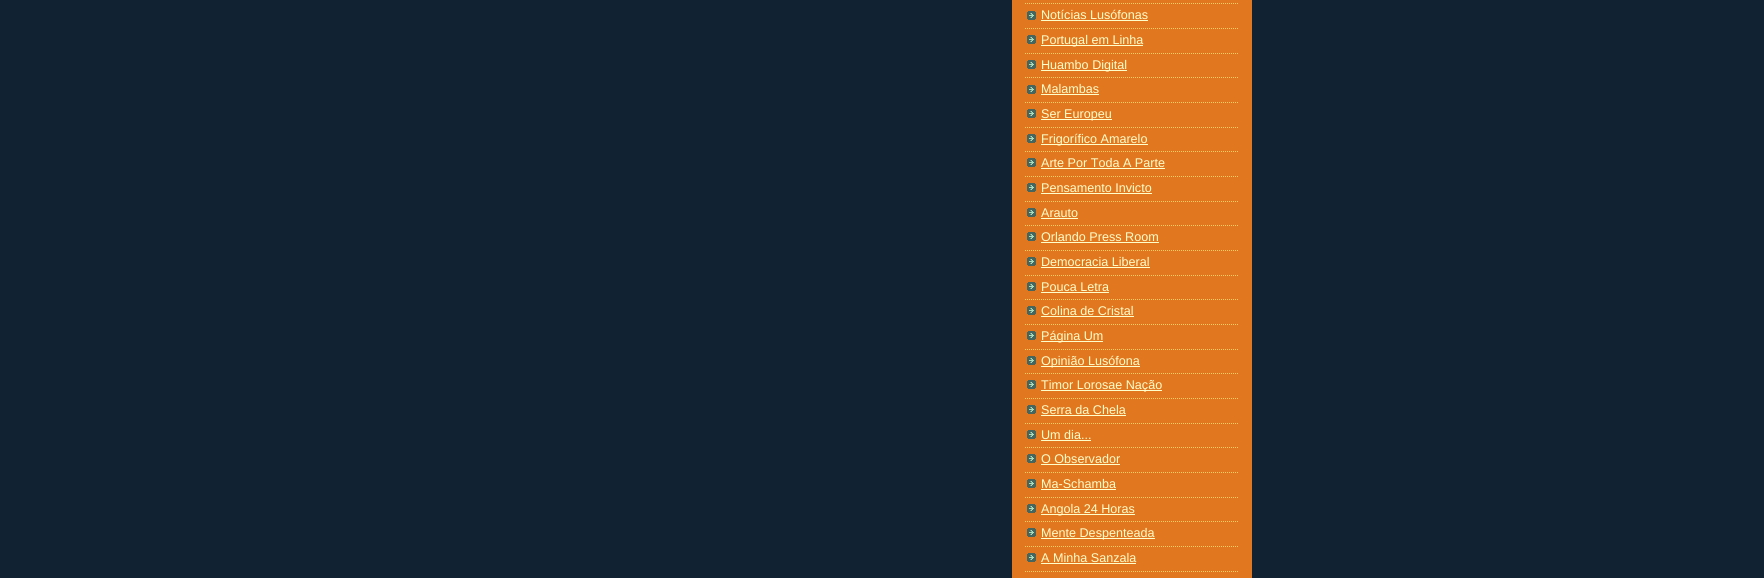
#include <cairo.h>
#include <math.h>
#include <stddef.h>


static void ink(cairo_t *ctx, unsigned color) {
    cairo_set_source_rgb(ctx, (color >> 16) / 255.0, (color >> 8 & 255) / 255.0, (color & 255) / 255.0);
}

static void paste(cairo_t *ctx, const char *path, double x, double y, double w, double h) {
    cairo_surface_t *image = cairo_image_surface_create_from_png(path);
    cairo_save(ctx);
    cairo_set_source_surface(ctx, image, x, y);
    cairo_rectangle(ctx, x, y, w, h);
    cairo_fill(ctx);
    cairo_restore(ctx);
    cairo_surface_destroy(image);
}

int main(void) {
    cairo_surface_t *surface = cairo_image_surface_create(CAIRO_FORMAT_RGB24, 1764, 578);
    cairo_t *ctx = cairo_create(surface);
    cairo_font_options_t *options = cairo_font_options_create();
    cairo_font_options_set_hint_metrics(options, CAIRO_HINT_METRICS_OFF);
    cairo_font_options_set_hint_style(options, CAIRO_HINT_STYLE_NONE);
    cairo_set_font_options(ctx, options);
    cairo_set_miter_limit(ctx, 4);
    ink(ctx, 0x112233);
    cairo_paint(ctx);
    ink(ctx, 0xE1771E);
    cairo_rectangle(ctx, 1012, 0, 240, 578);
    cairo_fill(ctx);
    cairo_new_path(ctx);
    cairo_move_to(ctx, 1025, 3.5);
    cairo_line_to(ctx, 1239, 3.5);
    ink(ctx, 0xFFCC66);
    cairo_set_line_width(ctx, 1);
    cairo_set_dash(ctx, (double[]){1, 1}, 2, 0);
    cairo_stroke(ctx);
    paste(ctx, "media/1.png", 1027, 11, 9, 9);
    cairo_new_path(ctx);
    cairo_move_to(ctx, 1025, 28.5);
    cairo_line_to(ctx, 1239, 28.5);
    cairo_stroke(ctx);
    cairo_select_font_face(ctx, "Liberation Sans", CAIRO_FONT_SLANT_NORMAL, CAIRO_FONT_WEIGHT_NORMAL);
    cairo_set_font_size(ctx, 12.6);
    ink(ctx, 0xFFFFCC);
    cairo_move_to(ctx, 1041, 19);
    cairo_show_text(ctx, "Notícias Lusófonas");
    cairo_rectangle(ctx, 1041, 20, 107, 1);
    cairo_fill(ctx);
    paste(ctx, "media/1.png", 1027, 35, 9, 9);
    cairo_new_path(ctx);
    cairo_move_to(ctx, 1025, 53.5);
    cairo_line_to(ctx, 1239, 53.5);
    ink(ctx, 0xFFCC66);
    cairo_stroke(ctx);
    ink(ctx, 0xFFFFCC);
    cairo_rectangle(ctx, 1041, 45, 102, 1);
    cairo_fill(ctx);
    cairo_move_to(ctx, 1041, 44);
    cairo_show_text(ctx, "Portugal em Linha");
    paste(ctx, "media/1.png", 1027, 60, 9, 9);
    cairo_new_path(ctx);
    cairo_move_to(ctx, 1025, 77.5);
    cairo_line_to(ctx, 1239, 77.5);
    ink(ctx, 0xFFCC66);
    cairo_stroke(ctx);
    ink(ctx, 0xFFFFCC);
    cairo_rectangle(ctx, 1041, 70, 86, 1);
    cairo_fill(ctx);
    cairo_move_to(ctx, 1041, 69);
    cairo_show_text(ctx, "Huambo Digital");
    paste(ctx, "media/1.png", 1027, 85, 9, 9);
    cairo_new_path(ctx);
    cairo_move_to(ctx, 1025, 102.5);
    cairo_line_to(ctx, 1239, 102.5);
    ink(ctx, 0xFFCC66);
    cairo_stroke(ctx);
    ink(ctx, 0xFFFFCC);
    cairo_move_to(ctx, 1041, 93);
    cairo_show_text(ctx, "Malambas");
    cairo_rectangle(ctx, 1041, 94, 58, 1);
    cairo_fill(ctx);
    paste(ctx, "media/1.png", 1027, 109, 9, 9);
    cairo_new_path(ctx);
    cairo_move_to(ctx, 1025, 127.5);
    cairo_line_to(ctx, 1239, 127.5);
    ink(ctx, 0xFFCC66);
    cairo_stroke(ctx);
    ink(ctx, 0xFFFFCC);
    cairo_rectangle(ctx, 1041, 119, 71, 1);
    cairo_fill(ctx);
    cairo_move_to(ctx, 1041, 118);
    cairo_show_text(ctx, "Ser Europeu");
    paste(ctx, "media/1.png", 1027, 134, 9, 9);
    cairo_new_path(ctx);
    cairo_move_to(ctx, 1025, 151.5);
    cairo_line_to(ctx, 1239, 151.5);
    ink(ctx, 0xFFCC66);
    cairo_stroke(ctx);
    ink(ctx, 0xFFFFCC);
    cairo_rectangle(ctx, 1041, 144, 107, 1);
    cairo_fill(ctx);
    cairo_move_to(ctx, 1041, 143);
    cairo_show_text(ctx, "Frigorífico Amarelo");
    paste(ctx, "media/1.png", 1027, 158, 9, 9);
    cairo_new_path(ctx);
    cairo_move_to(ctx, 1025, 176.5);
    cairo_line_to(ctx, 1239, 176.5);
    ink(ctx, 0xFFCC66);
    cairo_stroke(ctx);
    ink(ctx, 0xFFFFCC);
    cairo_move_to(ctx, 1041, 167);
    cairo_show_text(ctx, "Arte Por Toda A Parte");
    cairo_rectangle(ctx, 1041, 168, 124, 1);
    cairo_fill(ctx);
    paste(ctx, "media/1.png", 1027, 183, 9, 9);
    cairo_new_path(ctx);
    cairo_move_to(ctx, 1025, 201.5);
    cairo_line_to(ctx, 1239, 201.5);
    ink(ctx, 0xFFCC66);
    cairo_stroke(ctx);
    ink(ctx, 0xFFFFCC);
    cairo_move_to(ctx, 1041, 192);
    cairo_show_text(ctx, "Pensamento Invicto");
    cairo_rectangle(ctx, 1041, 193, 111, 1);
    cairo_fill(ctx);
    paste(ctx, "media/1.png", 1027, 208, 9, 9);
    cairo_new_path(ctx);
    cairo_move_to(ctx, 1025, 225.5);
    cairo_line_to(ctx, 1239, 225.5);
    ink(ctx, 0xFFCC66);
    cairo_stroke(ctx);
    ink(ctx, 0xFFFFCC);
    cairo_move_to(ctx, 1041, 217);
    cairo_show_text(ctx, "Arauto");
    cairo_rectangle(ctx, 1041, 218, 37, 1);
    cairo_fill(ctx);
    paste(ctx, "media/1.png", 1027, 232, 9, 9);
    cairo_new_path(ctx);
    cairo_move_to(ctx, 1025, 250.5);
    cairo_line_to(ctx, 1239, 250.5);
    ink(ctx, 0xFFCC66);
    cairo_stroke(ctx);
    ink(ctx, 0xFFFFCC);
    cairo_move_to(ctx, 1041, 241);
    cairo_show_text(ctx, "Orlando Press Room");
    cairo_rectangle(ctx, 1041, 242, 118, 1);
    cairo_fill(ctx);
    paste(ctx, "media/1.png", 1027, 257, 9, 9);
    cairo_new_path(ctx);
    cairo_move_to(ctx, 1025, 275.5);
    cairo_line_to(ctx, 1239, 275.5);
    ink(ctx, 0xFFCC66);
    cairo_stroke(ctx);
    ink(ctx, 0xFFFFCC);
    cairo_move_to(ctx, 1041, 266);
    cairo_show_text(ctx, "Democracia Liberal");
    cairo_rectangle(ctx, 1041, 267, 109, 1);
    cairo_fill(ctx);
    paste(ctx, "media/1.png", 1027, 282, 9, 9);
    cairo_new_path(ctx);
    cairo_move_to(ctx, 1025, 299.5);
    cairo_line_to(ctx, 1239, 299.5);
    ink(ctx, 0xFFCC66);
    cairo_stroke(ctx);
    ink(ctx, 0xFFFFCC);
    cairo_move_to(ctx, 1041, 291);
    cairo_show_text(ctx, "Pouca Letra");
    cairo_rectangle(ctx, 1041, 292, 68, 1);
    cairo_fill(ctx);
    paste(ctx, "media/1.png", 1027, 306, 9, 9);
    cairo_new_path(ctx);
    cairo_move_to(ctx, 1025, 324.5);
    cairo_line_to(ctx, 1239, 324.5);
    ink(ctx, 0xFFCC66);
    cairo_stroke(ctx);
    ink(ctx, 0xFFFFCC);
    cairo_move_to(ctx, 1041, 315);
    cairo_show_text(ctx, "Colina de Cristal");
    cairo_rectangle(ctx, 1041, 316, 93, 1);
    cairo_fill(ctx);
    paste(ctx, "media/1.png", 1027, 331, 9, 9);
    cairo_new_path(ctx);
    cairo_move_to(ctx, 1025, 349.5);
    cairo_line_to(ctx, 1239, 349.5);
    ink(ctx, 0xFFCC66);
    cairo_stroke(ctx);
    ink(ctx, 0xFFFFCC);
    cairo_rectangle(ctx, 1041, 341, 62, 1);
    cairo_fill(ctx);
    cairo_move_to(ctx, 1041, 340);
    cairo_show_text(ctx, "Página Um");
    paste(ctx, "media/1.png", 1027, 356, 9, 9);
    cairo_new_path(ctx);
    cairo_move_to(ctx, 1025, 373.5);
    cairo_line_to(ctx, 1239, 373.5);
    ink(ctx, 0xFFCC66);
    cairo_stroke(ctx);
    ink(ctx, 0xFFFFCC);
    cairo_rectangle(ctx, 1041, 366, 99, 1);
    cairo_fill(ctx);
    cairo_move_to(ctx, 1041, 365);
    cairo_show_text(ctx, "Opinião Lusófona");
    paste(ctx, "media/1.png", 1027, 380, 9, 9);
    cairo_new_path(ctx);
    cairo_move_to(ctx, 1025, 398.5);
    cairo_line_to(ctx, 1239, 398.5);
    ink(ctx, 0xFFCC66);
    cairo_stroke(ctx);
    ink(ctx, 0xFFFFCC);
    cairo_rectangle(ctx, 1041, 390, 121, 1);
    cairo_fill(ctx);
    cairo_move_to(ctx, 1041, 389);
    cairo_show_text(ctx, "Timor Lorosae Nação");
    paste(ctx, "media/1.png", 1027, 405, 9, 9);
    cairo_new_path(ctx);
    cairo_move_to(ctx, 1025, 423.5);
    cairo_line_to(ctx, 1239, 423.5);
    ink(ctx, 0xFFCC66);
    cairo_stroke(ctx);
    ink(ctx, 0xFFFFCC);
    cairo_move_to(ctx, 1041, 414);
    cairo_show_text(ctx, "Serra da Chela");
    cairo_rectangle(ctx, 1041, 415, 85, 1);
    cairo_fill(ctx);
    paste(ctx, "media/1.png", 1027, 430, 9, 9);
    cairo_new_path(ctx);
    cairo_move_to(ctx, 1025, 447.5);
    cairo_line_to(ctx, 1239, 447.5);
    ink(ctx, 0xFFCC66);
    cairo_stroke(ctx);
    ink(ctx, 0xFFFFCC);
    cairo_move_to(ctx, 1041, 439);
    cairo_show_text(ctx, "Um dia...");
    cairo_rectangle(ctx, 1041, 440, 50, 1);
    cairo_fill(ctx);
    paste(ctx, "media/1.png", 1027, 454, 9, 9);
    cairo_new_path(ctx);
    cairo_move_to(ctx, 1025, 472.5);
    cairo_line_to(ctx, 1239, 472.5);
    ink(ctx, 0xFFCC66);
    cairo_stroke(ctx);
    ink(ctx, 0xFFFFCC);
    cairo_move_to(ctx, 1041, 463);
    cairo_show_text(ctx, "O Observador");
    cairo_rectangle(ctx, 1041, 464, 79, 1);
    cairo_fill(ctx);
    paste(ctx, "media/1.png", 1027, 479, 9, 9);
    cairo_new_path(ctx);
    cairo_move_to(ctx, 1025, 497.5);
    cairo_line_to(ctx, 1239, 497.5);
    ink(ctx, 0xFFCC66);
    cairo_stroke(ctx);
    ink(ctx, 0xFFFFCC);
    cairo_move_to(ctx, 1041, 488);
    cairo_show_text(ctx, "Ma-Schamba");
    cairo_rectangle(ctx, 1041, 489, 75, 1);
    cairo_fill(ctx);
    paste(ctx, "media/1.png", 1027, 504, 9, 9);
    cairo_new_path(ctx);
    cairo_move_to(ctx, 1025, 521.5);
    cairo_line_to(ctx, 1239, 521.5);
    ink(ctx, 0xFFCC66);
    cairo_stroke(ctx);
    ink(ctx, 0xFFFFCC);
    cairo_rectangle(ctx, 1041, 514, 94, 1);
    cairo_fill(ctx);
    cairo_move_to(ctx, 1041, 513);
    cairo_show_text(ctx, "Angola 24 Horas");
    paste(ctx, "media/1.png", 1027, 528, 9, 9);
    cairo_new_path(ctx);
    cairo_move_to(ctx, 1025, 546.5);
    cairo_line_to(ctx, 1239, 546.5);
    ink(ctx, 0xFFCC66);
    cairo_stroke(ctx);
    ink(ctx, 0xFFFFCC);
    cairo_rectangle(ctx, 1041, 538, 114, 1);
    cairo_fill(ctx);
    cairo_move_to(ctx, 1041, 537);
    cairo_show_text(ctx, "Mente Despenteada");
    paste(ctx, "media/1.png", 1027, 553, 9, 9);
    cairo_new_path(ctx);
    cairo_move_to(ctx, 1025, 571.5);
    cairo_line_to(ctx, 1239, 571.5);
    ink(ctx, 0xFFCC66);
    cairo_stroke(ctx);
    ink(ctx, 0xFFFFCC);
    cairo_move_to(ctx, 1041, 562);
    cairo_show_text(ctx, "A Minha Sanzala");
    cairo_rectangle(ctx, 1041, 563, 95, 1);
    cairo_fill(ctx);
    cairo_surface_write_to_png(surface, "image.png");
    cairo_font_options_destroy(options);
    cairo_destroy(ctx);
    cairo_surface_destroy(surface);
    return 0;
}
